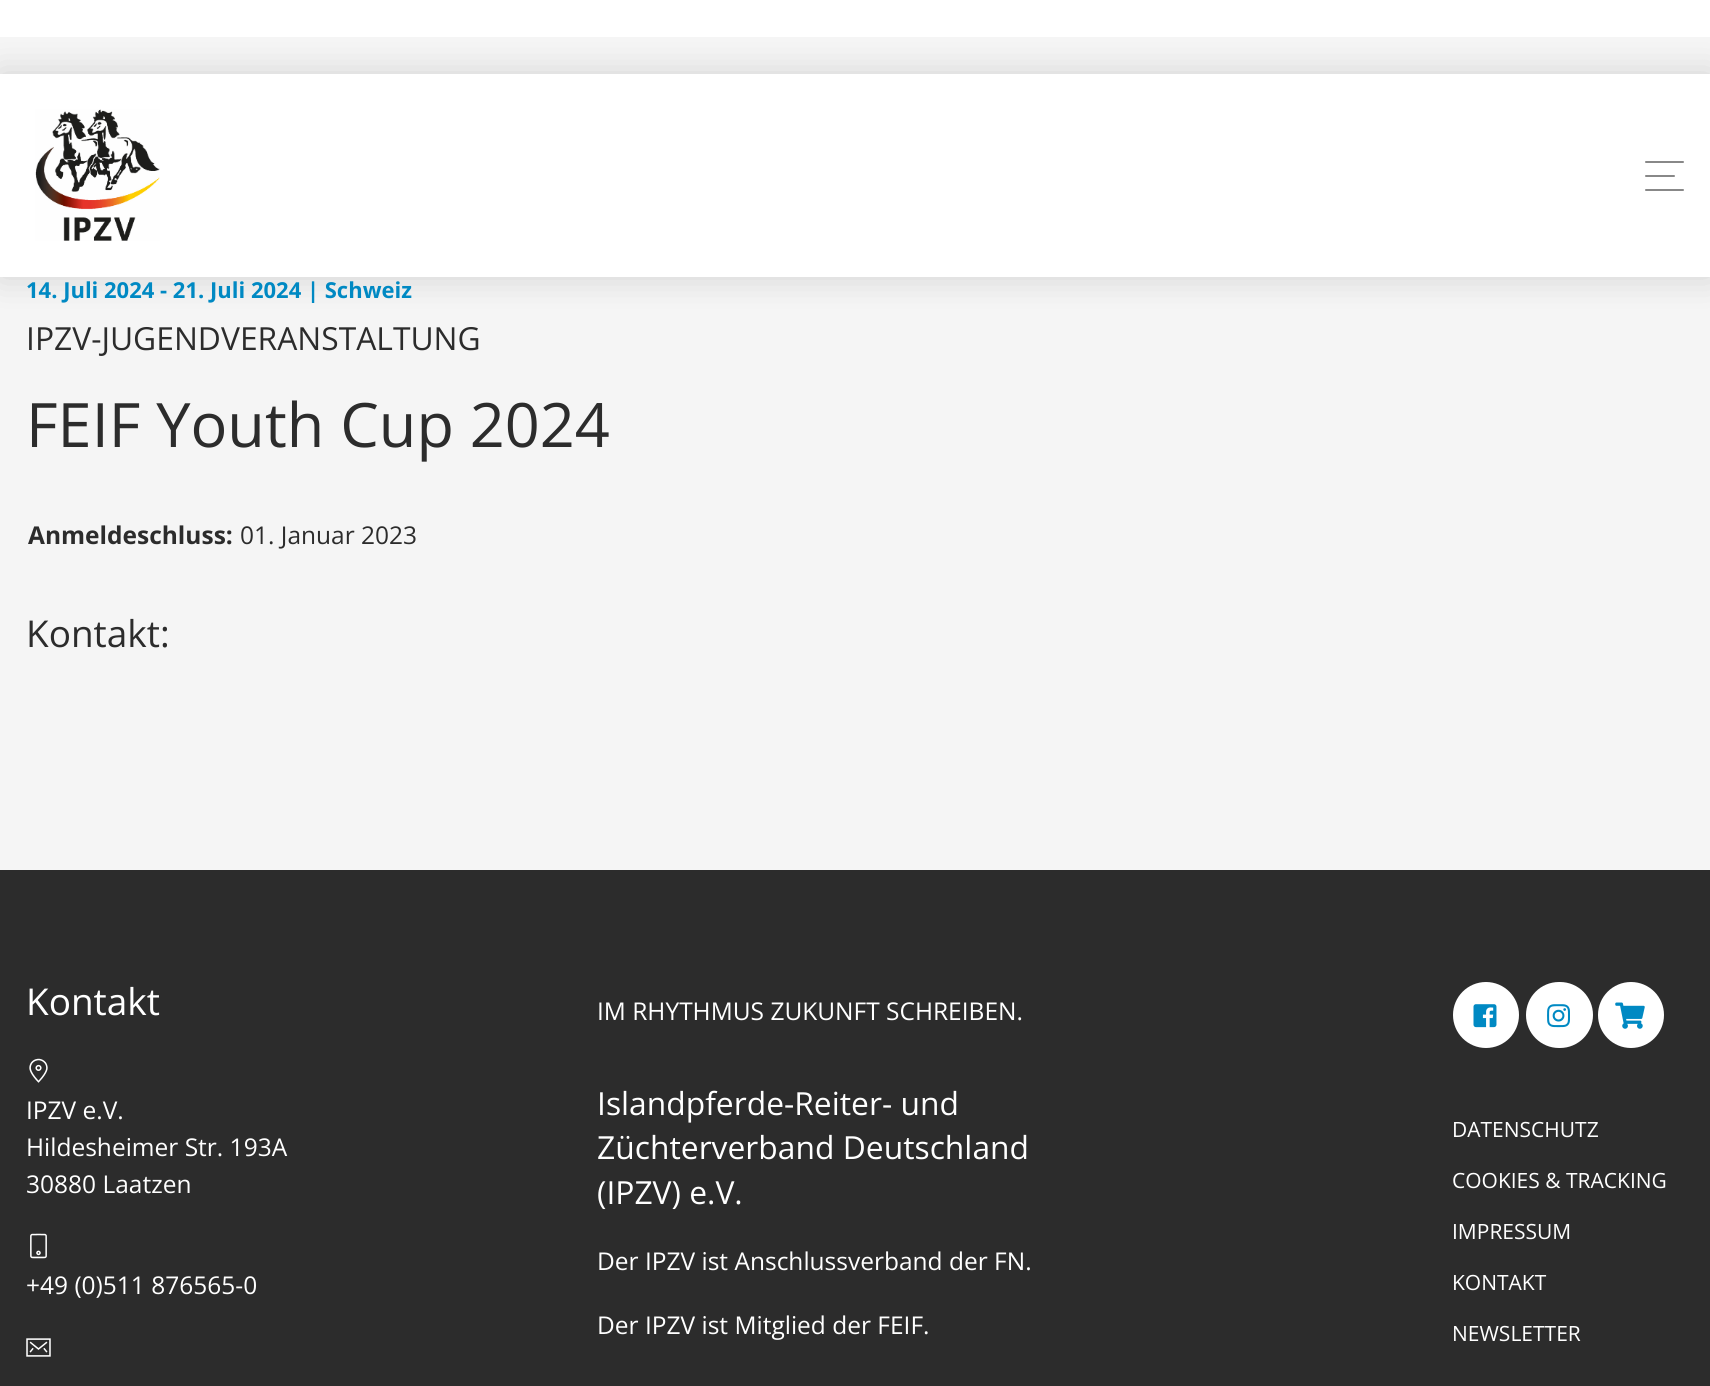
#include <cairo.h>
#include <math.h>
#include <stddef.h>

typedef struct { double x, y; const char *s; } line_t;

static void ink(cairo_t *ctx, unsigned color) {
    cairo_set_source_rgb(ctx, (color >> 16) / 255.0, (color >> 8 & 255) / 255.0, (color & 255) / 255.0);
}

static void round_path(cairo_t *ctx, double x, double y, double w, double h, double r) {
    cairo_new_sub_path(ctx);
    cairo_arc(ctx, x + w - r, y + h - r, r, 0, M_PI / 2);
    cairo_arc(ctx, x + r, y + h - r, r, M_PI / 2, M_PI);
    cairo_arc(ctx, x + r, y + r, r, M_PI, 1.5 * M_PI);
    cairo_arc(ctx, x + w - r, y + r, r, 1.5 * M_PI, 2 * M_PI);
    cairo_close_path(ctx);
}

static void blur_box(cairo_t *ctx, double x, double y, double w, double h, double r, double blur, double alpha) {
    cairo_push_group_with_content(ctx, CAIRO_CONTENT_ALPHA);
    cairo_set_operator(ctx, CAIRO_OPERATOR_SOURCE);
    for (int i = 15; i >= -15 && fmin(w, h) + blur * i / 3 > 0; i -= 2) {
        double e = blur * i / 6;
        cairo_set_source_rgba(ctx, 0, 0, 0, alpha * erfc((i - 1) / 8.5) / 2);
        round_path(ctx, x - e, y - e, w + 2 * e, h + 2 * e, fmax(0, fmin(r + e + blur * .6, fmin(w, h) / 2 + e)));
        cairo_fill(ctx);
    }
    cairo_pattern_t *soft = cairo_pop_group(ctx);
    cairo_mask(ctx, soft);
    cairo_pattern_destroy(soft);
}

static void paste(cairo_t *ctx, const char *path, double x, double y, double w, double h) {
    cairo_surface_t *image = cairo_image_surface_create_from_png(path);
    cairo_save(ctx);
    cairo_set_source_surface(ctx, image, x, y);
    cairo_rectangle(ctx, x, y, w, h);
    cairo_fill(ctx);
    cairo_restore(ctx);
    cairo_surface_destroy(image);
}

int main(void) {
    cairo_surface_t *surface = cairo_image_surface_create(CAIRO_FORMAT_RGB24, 1710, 1386);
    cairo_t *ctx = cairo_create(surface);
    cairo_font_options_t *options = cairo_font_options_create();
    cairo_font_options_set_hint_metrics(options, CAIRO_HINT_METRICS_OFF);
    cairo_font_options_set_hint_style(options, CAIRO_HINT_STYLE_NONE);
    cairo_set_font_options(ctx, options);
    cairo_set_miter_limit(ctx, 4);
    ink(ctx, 0xF5F5F5);
    cairo_paint(ctx);
    ink(ctx, 0xFFFFFF);
    cairo_rectangle(ctx, 0, 0, 1710, 37);
    cairo_fill(ctx);
    ink(ctx, 0x000000);
    blur_box(ctx, 0, 74, 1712, 203, 0, 17.5, 0.15);
    ink(ctx, 0xFFFFFF);
    cairo_rectangle(ctx, 0, 74, 1710, 203);
    cairo_fill(ctx);
    paste(ctx, "media/1.png", 35, 109, 125, 132);
    ink(ctx, 0x888888);
    round_path(ctx, 1645, 161, 39, 2, 1);
    cairo_fill(ctx);
    round_path(ctx, 1645, 175, 30, 2, 1);
    cairo_fill(ctx);
    round_path(ctx, 1645, 189, 39, 2, 1);
    cairo_fill(ctx);
    cairo_select_font_face(ctx, "Open Sans", CAIRO_FONT_SLANT_NORMAL, CAIRO_FONT_WEIGHT_BOLD);
    cairo_set_font_size(ctx, 22);
    ink(ctx, 0x0089C3);
    cairo_move_to(ctx, 26, 298);
    cairo_show_text(ctx, "14. Juli 2024 - 21. Juli 2024 | Schweiz");
    cairo_select_font_face(ctx, "Open Sans", CAIRO_FONT_SLANT_NORMAL, CAIRO_FONT_WEIGHT_NORMAL);
    cairo_set_font_size(ctx, 31.8);
    ink(ctx, 0x2C2C2C);
    cairo_move_to(ctx, 26, 350);
    cairo_show_text(ctx, "IPZV-JUGENDVERANSTALTUNG");
    cairo_set_font_size(ctx, 61.25);
    cairo_move_to(ctx, 26, 447);
    cairo_show_text(ctx, "FEIF Youth Cup 2024");
    cairo_select_font_face(ctx, "Open Sans", CAIRO_FONT_SLANT_NORMAL, CAIRO_FONT_WEIGHT_BOLD);
    cairo_set_font_size(ctx, 24.5);
    cairo_move_to(ctx, 28, 544);
    cairo_show_text(ctx, "Anmeldeschluss:");
    cairo_select_font_face(ctx, "Open Sans", CAIRO_FONT_SLANT_NORMAL, CAIRO_FONT_WEIGHT_NORMAL);
    cairo_move_to(ctx, 240, 544);
    cairo_show_text(ctx, "01. Januar 2023");
    cairo_set_font_size(ctx, 37);
    cairo_move_to(ctx, 26, 647);
    cairo_show_text(ctx, "Kontakt:");
    cairo_rectangle(ctx, 0, 870, 1710, 516);
    cairo_fill(ctx);
    ink(ctx, 0xFFFFFF);
    cairo_move_to(ctx, 26, 1015);
    cairo_show_text(ctx, "Kontakt");
    paste(ctx, "media/2.png", 29, 1058, 19, 25);
    cairo_set_font_size(ctx, 24.5);
    {
        static const line_t items[] = {
            {26, 1119, "IPZV e.V."},
            {26, 1156, "Hildesheimer Str. 193A"},
            {26, 1193, "30880 Laatzen"},
        };
        for (size_t i = 0; i < sizeof items / sizeof *items; i++) {
            cairo_move_to(ctx, items[i].x, items[i].y);
            cairo_show_text(ctx, items[i].s);
        }
    }
    paste(ctx, "media/3.png", 30, 1233, 17, 26);
    cairo_move_to(ctx, 26, 1294);
    cairo_show_text(ctx, "+49 (0)511 876565-0");
    paste(ctx, "media/4.png", 26, 1338, 25, 19);
    cairo_move_to(ctx, 597, 1020);
    cairo_show_text(ctx, "IM RHYTHMUS ZUKUNFT SCHREIBEN.");
    cairo_set_font_size(ctx, 31.8);
    {
        static const line_t items[] = {
            {597, 1115, "Islandpferde-Reiter- und"},
            {597, 1159, "Züchterverband Deutschland"},
            {597, 1204, "(IPZV) e.V."},
        };
        for (size_t i = 0; i < sizeof items / sizeof *items; i++) {
            cairo_move_to(ctx, items[i].x, items[i].y);
            cairo_show_text(ctx, items[i].s);
        }
    }
    cairo_set_font_size(ctx, 24.5);
    cairo_move_to(ctx, 597, 1270);
    cairo_show_text(ctx, "Der IPZV ist Anschlussverband der FN.");
    cairo_move_to(ctx, 597, 1334);
    cairo_show_text(ctx, "Der IPZV ist Mitglied der FEIF.");
    cairo_new_path(ctx);
    cairo_arc(ctx, 1486, 1015, 33, 0, 2 * M_PI);
    cairo_fill(ctx);
    paste(ctx, "media/5.png", 1473, 1004, 24, 24);
    round_path(ctx, 1526, 982, 67, 66, 33);
    cairo_fill(ctx);
    paste(ctx, "media/6.png", 1547, 1004, 23, 24);
    cairo_arc(ctx, 1631, 1015, 33, 0, 2 * M_PI);
    cairo_fill(ctx);
    paste(ctx, "media/7.png", 1615, 1002, 30, 27);
    cairo_set_font_size(ctx, 21);
    {
        static const line_t items[] = {
            {1452, 1137, "DATENSCHUTZ"},
            {1452, 1188, "COOKIES & TRACKING"},
            {1452, 1239, "IMPRESSUM"},
            {1452, 1290, "KONTAKT"},
            {1452, 1341, "NEWSLETTER"},
        };
        for (size_t i = 0; i < sizeof items / sizeof *items; i++) {
            cairo_move_to(ctx, items[i].x, items[i].y);
            cairo_show_text(ctx, items[i].s);
        }
    }
    cairo_surface_write_to_png(surface, "image.png");
    cairo_font_options_destroy(options);
    cairo_destroy(ctx);
    cairo_surface_destroy(surface);
    return 0;
}
